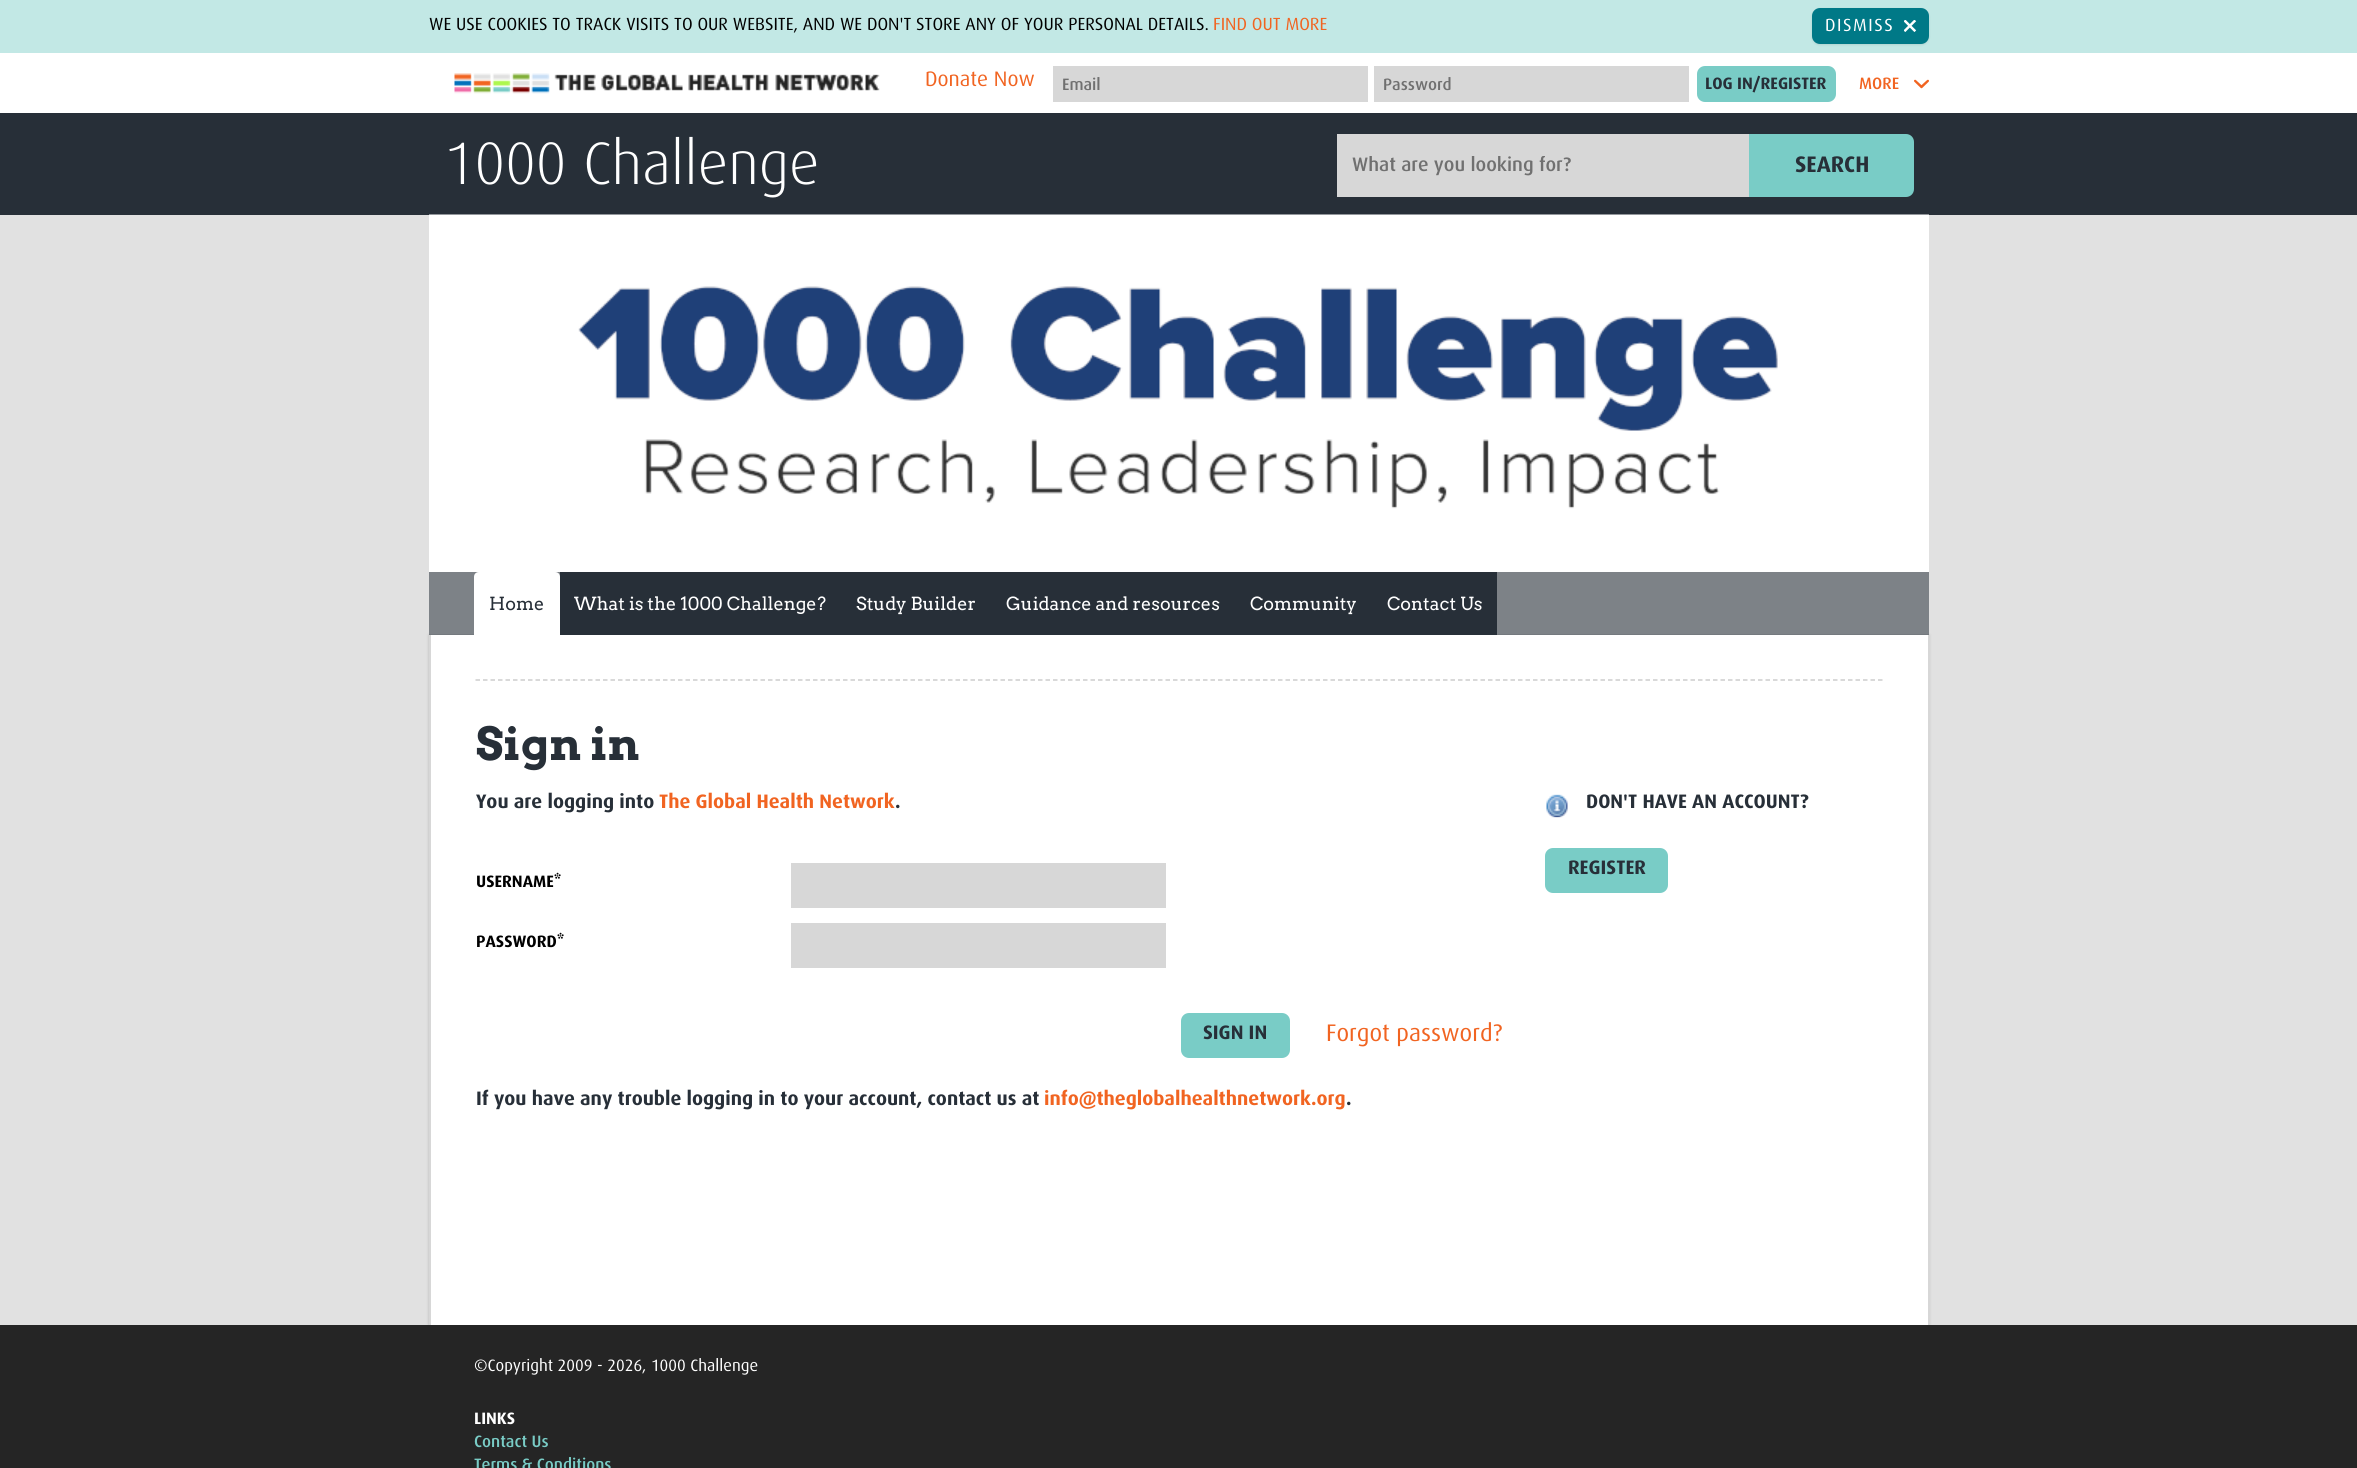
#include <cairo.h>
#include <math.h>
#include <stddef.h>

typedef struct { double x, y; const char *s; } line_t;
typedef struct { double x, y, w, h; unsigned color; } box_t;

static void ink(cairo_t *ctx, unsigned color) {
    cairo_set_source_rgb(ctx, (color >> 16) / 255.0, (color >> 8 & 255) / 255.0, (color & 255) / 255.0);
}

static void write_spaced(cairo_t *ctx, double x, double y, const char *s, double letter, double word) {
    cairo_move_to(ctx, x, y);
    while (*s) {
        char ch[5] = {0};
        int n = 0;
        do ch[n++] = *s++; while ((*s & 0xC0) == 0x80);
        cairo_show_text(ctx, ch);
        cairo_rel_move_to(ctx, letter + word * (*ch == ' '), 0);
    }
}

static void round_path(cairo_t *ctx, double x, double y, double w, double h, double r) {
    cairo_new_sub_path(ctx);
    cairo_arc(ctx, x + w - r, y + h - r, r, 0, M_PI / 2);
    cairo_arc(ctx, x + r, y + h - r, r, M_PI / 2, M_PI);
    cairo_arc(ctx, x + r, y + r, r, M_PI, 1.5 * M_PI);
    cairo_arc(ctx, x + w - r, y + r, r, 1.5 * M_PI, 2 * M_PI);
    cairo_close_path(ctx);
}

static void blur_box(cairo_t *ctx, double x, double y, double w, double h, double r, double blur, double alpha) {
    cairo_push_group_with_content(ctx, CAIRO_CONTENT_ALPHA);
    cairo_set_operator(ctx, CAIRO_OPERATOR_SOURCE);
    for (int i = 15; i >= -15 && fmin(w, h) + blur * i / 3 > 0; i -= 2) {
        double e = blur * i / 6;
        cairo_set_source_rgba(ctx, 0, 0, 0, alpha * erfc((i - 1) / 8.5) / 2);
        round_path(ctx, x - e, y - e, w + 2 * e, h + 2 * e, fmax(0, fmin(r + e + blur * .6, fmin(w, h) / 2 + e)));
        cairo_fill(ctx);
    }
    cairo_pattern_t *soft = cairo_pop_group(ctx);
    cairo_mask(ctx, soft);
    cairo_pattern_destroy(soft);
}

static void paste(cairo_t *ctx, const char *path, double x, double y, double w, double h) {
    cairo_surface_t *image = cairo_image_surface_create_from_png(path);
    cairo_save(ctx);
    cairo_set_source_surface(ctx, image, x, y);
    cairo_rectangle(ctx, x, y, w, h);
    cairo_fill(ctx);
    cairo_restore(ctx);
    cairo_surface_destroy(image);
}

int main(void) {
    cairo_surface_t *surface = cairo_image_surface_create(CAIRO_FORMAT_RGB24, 2357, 1468);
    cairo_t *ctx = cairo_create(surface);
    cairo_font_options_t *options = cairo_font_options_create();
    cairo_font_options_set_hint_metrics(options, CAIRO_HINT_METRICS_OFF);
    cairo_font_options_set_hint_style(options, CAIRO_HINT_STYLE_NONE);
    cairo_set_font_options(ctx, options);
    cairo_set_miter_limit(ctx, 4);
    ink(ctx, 0xE1E1E1);
    cairo_paint(ctx);
    ink(ctx, 0xC2E8E5);
    cairo_rectangle(ctx, 0, 0, 2357, 53);
    cairo_fill(ctx);
    cairo_select_font_face(ctx, "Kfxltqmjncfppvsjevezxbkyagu", CAIRO_FONT_SLANT_NORMAL, CAIRO_FONT_WEIGHT_NORMAL);
    cairo_set_font_size(ctx, 17.6);
    ink(ctx, 0x000000);
    cairo_move_to(ctx, 429, 30);
    cairo_show_text(ctx, "WE USE COOKIES TO TRACK VISITS TO OUR WEBSITE, AND WE DON'T STORE ANY OF YOUR PERSONAL DETAILS.");
    ink(ctx, 0xF16421);
    cairo_move_to(ctx, 1213, 30);
    cairo_show_text(ctx, "FIND OUT MORE");
    ink(ctx, 0x0D1314);
    blur_box(ctx, 1812, 9, 117, 36, 8, 1, 0.1);
    ink(ctx, 0x007987);
    round_path(ctx, 1812, 8, 117, 36, 8);
    cairo_fill(ctx);
    ink(ctx, 0xFFFFFF);
    write_spaced(ctx, 1825, 31, "DISMISS", 1.5, 0);
    paste(ctx, "media/1.png", 1904, 20, 13, 12);
    cairo_rectangle(ctx, 0, 53, 2357, 60);
    cairo_fill(ctx);
    paste(ctx, "media/2.png", 454, 73, 426, 21);
    cairo_set_font_size(ctx, 21);
    ink(ctx, 0xF16421);
    cairo_move_to(ctx, 925, 86);
    cairo_show_text(ctx, "Donate Now");
    ink(ctx, 0xD7D7D7);
    cairo_rectangle(ctx, 1053, 66, 315, 36);
    cairo_fill(ctx);
    cairo_select_font_face(ctx, "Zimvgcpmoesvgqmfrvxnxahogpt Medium", CAIRO_FONT_SLANT_NORMAL, CAIRO_FONT_WEIGHT_NORMAL);
    cairo_set_font_size(ctx, 16.5);
    ink(ctx, 0x707070);
    cairo_move_to(ctx, 1062, 90);
    cairo_show_text(ctx, "Email");
    ink(ctx, 0xD7D7D7);
    cairo_rectangle(ctx, 1374, 66, 315, 36);
    cairo_fill(ctx);
    ink(ctx, 0x707070);
    cairo_move_to(ctx, 1383, 90);
    cairo_show_text(ctx, "Password");
    ink(ctx, 0x79CCC6);
    round_path(ctx, 1697, 66, 139, 36, 8);
    cairo_fill(ctx);
    cairo_select_font_face(ctx, "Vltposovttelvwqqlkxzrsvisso", CAIRO_FONT_SLANT_NORMAL, CAIRO_FONT_WEIGHT_BOLD);
    ink(ctx, 0x272F38);
    cairo_move_to(ctx, 1705, 89);
    cairo_show_text(ctx, "LOG IN/REGISTER");
    cairo_select_font_face(ctx, "Zimvgcpmoesvgqmfrvxnxahogpt Medium", CAIRO_FONT_SLANT_NORMAL, CAIRO_FONT_WEIGHT_NORMAL);
    ink(ctx, 0xF16421);
    cairo_move_to(ctx, 1859, 89);
    cairo_show_text(ctx, "MORE");
    paste(ctx, "media/3.png", 1914, 79, 15, 10);
    ink(ctx, 0x272F38);
    cairo_rectangle(ctx, 0, 113, 2357, 102);
    cairo_fill(ctx);
    cairo_select_font_face(ctx, "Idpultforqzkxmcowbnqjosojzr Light", CAIRO_FONT_SLANT_NORMAL, CAIRO_FONT_WEIGHT_NORMAL);
    cairo_set_font_size(ctx, 60);
    ink(ctx, 0xFFFFFF);
    cairo_move_to(ctx, 444, 184);
    cairo_show_text(ctx, "1000 Challenge");
    ink(ctx, 0xD7D7D7);
    cairo_rectangle(ctx, 1337, 134, 412, 63);
    cairo_fill(ctx);
    cairo_save(ctx);
    cairo_rectangle(ctx, 1352, 156, 390, 20);
    cairo_clip(ctx);
    cairo_select_font_face(ctx, "Zimvgcpmoesvgqmfrvxnxahogpt Medium", CAIRO_FONT_SLANT_NORMAL, CAIRO_FONT_WEIGHT_NORMAL);
    cairo_set_font_size(ctx, 19.5);
    ink(ctx, 0x707070);
    cairo_move_to(ctx, 1352, 171);
    cairo_show_text(ctx, "What are you looking for?");
    cairo_restore(ctx);
    ink(ctx, 0x79CCC6);
    cairo_new_path(ctx);
    cairo_move_to(ctx, 1749, 134);
    cairo_line_to(ctx, 1906, 134);
    cairo_curve_to(ctx, 1910.5, 134, 1914, 137.5, 1914, 142);
    cairo_line_to(ctx, 1914, 189);
    cairo_curve_to(ctx, 1914, 193.5, 1910.5, 197, 1906, 197);
    cairo_line_to(ctx, 1749, 197);
    cairo_close_path(ctx);
    cairo_fill(ctx);
    cairo_select_font_face(ctx, "Vltposovttelvwqqlkxzrsvisso", CAIRO_FONT_SLANT_NORMAL, CAIRO_FONT_WEIGHT_BOLD);
    cairo_set_font_size(ctx, 22.5);
    ink(ctx, 0x272F38);
    cairo_move_to(ctx, 1795, 172);
    cairo_show_text(ctx, "SEARCH");
    ink(ctx, 0x000000);
    blur_box(ctx, 429, 635, 1500, 690, 0, 1.5, 0.2);
    paste(ctx, "media/4.png", 429, 214, 1500, 421);
    cairo_set_source_rgba(ctx, 0.153, 0.184, 0.22, 0.6);
    cairo_rectangle(ctx, 429, 572, 1500, 63);
    cairo_fill(ctx);
    ink(ctx, 0xFFFFFF);
    cairo_new_path(ctx);
    cairo_move_to(ctx, 479, 572);
    cairo_line_to(ctx, 555, 572);
    cairo_curve_to(ctx, 558, 572, 560, 574, 560, 577);
    cairo_line_to(ctx, 560, 635);
    cairo_line_to(ctx, 474, 635);
    cairo_line_to(ctx, 474, 577);
    cairo_curve_to(ctx, 474, 574, 476, 572, 479, 572);
    cairo_close_path(ctx);
    cairo_fill(ctx);
    cairo_select_font_face(ctx, "Arvo", CAIRO_FONT_SLANT_NORMAL, CAIRO_FONT_WEIGHT_NORMAL);
    cairo_set_font_size(ctx, 18);
    ink(ctx, 0x272F38);
    cairo_move_to(ctx, 489, 610);
    cairo_show_text(ctx, "Home");
    cairo_rectangle(ctx, 560, 572, 937, 63);
    cairo_fill(ctx);
    ink(ctx, 0xFFFFFF);
    {
        static const line_t items[] = {
            {574, 610, "What is the 1000 Challenge?"},
            {856, 610, "Study Builder"},
            {1006, 610, "Guidance and resources"},
            {1250, 610, "Community"},
            {1387, 610, "Contact Us"},
        };
        for (size_t i = 0; i < sizeof items / sizeof *items; i++) {
            cairo_move_to(ctx, items[i].x, items[i].y);
            cairo_show_text(ctx, items[i].s);
        }
    }
    {
        static const box_t items[] = {
            {431, 635, 1497, 690, 0xFFFFFF},
            {1928, 635, 2, 690, 0xD7D7D7},
            {429, 635, 2, 690, 0xD7D7D7},
        };
        for (size_t i = 0; i < sizeof items / sizeof *items; i++) {
            ink(ctx, items[i].color);
            cairo_rectangle(ctx, items[i].x, items[i].y, items[i].w, items[i].h);
            cairo_fill(ctx);
        }
    }
    cairo_new_path(ctx);
    cairo_move_to(ctx, 475.5, 680);
    cairo_line_to(ctx, 1882.5, 680);
    ink(ctx, 0xCCCCCC);
    cairo_set_line_width(ctx, 1.5);
    cairo_set_dash(ctx, (double[]){4.5, 3}, 2, 0);
    cairo_stroke(ctx);
    cairo_select_font_face(ctx, "Arvo", CAIRO_FONT_SLANT_NORMAL, CAIRO_FONT_WEIGHT_BOLD);
    cairo_set_font_size(ctx, 45);
    ink(ctx, 0x272F38);
    cairo_move_to(ctx, 476, 760);
    cairo_show_text(ctx, "Sign in");
    cairo_select_font_face(ctx, "Vltposovttelvwqqlkxzrsvisso", CAIRO_FONT_SLANT_NORMAL, CAIRO_FONT_WEIGHT_BOLD);
    cairo_set_font_size(ctx, 19.5);
    cairo_move_to(ctx, 476, 808);
    cairo_show_text(ctx, "You are logging into");
    ink(ctx, 0xF16421);
    cairo_move_to(ctx, 659, 808);
    cairo_show_text(ctx, "The Global Health Network");
    ink(ctx, 0x272F38);
    cairo_move_to(ctx, 895, 808);
    cairo_show_text(ctx, ".");
    cairo_set_font_size(ctx, 16.5);
    ink(ctx, 0x000000);
    cairo_move_to(ctx, 476, 887);
    cairo_show_text(ctx, "USERNAME*");
    ink(ctx, 0xD7D7D7);
    cairo_rectangle(ctx, 791, 863, 375, 45);
    cairo_fill(ctx);
    ink(ctx, 0x000000);
    cairo_move_to(ctx, 476, 947);
    cairo_show_text(ctx, "PASSWORD*");
    ink(ctx, 0xD7D7D7);
    cairo_rectangle(ctx, 791, 923, 375, 45);
    cairo_fill(ctx);
    ink(ctx, 0x79CCC6);
    round_path(ctx, 1181, 1013, 109, 45, 8);
    cairo_fill(ctx);
    cairo_set_font_size(ctx, 19.5);
    ink(ctx, 0x272F38);
    cairo_move_to(ctx, 1203, 1039);
    cairo_show_text(ctx, "SIGN IN");
    cairo_select_font_face(ctx, "Kfxltqmjncfppvsjevezxbkyagu", CAIRO_FONT_SLANT_NORMAL, CAIRO_FONT_WEIGHT_NORMAL);
    cairo_set_font_size(ctx, 24);
    ink(ctx, 0xF16421);
    cairo_move_to(ctx, 1326, 1041);
    cairo_show_text(ctx, "Forgot password?");
    cairo_select_font_face(ctx, "Vltposovttelvwqqlkxzrsvisso", CAIRO_FONT_SLANT_NORMAL, CAIRO_FONT_WEIGHT_BOLD);
    cairo_set_font_size(ctx, 19.5);
    ink(ctx, 0x272F38);
    cairo_move_to(ctx, 476, 1105);
    cairo_show_text(ctx, "If you have any trouble logging in to your account, contact us at");
    ink(ctx, 0xF16421);
    cairo_move_to(ctx, 1044, 1105);
    cairo_show_text(ctx, "info@theglobalhealthnetwork.org");
    ink(ctx, 0x272F38);
    cairo_move_to(ctx, 1346, 1105);
    cairo_show_text(ctx, ".");
    paste(ctx, "media/5.png", 1546, 794, 22, 24);
    cairo_move_to(ctx, 1586, 808);
    cairo_show_text(ctx, "DON'T HAVE AN ACCOUNT?");
    ink(ctx, 0x79CCC6);
    round_path(ctx, 1545, 848, 123, 45, 8);
    cairo_fill(ctx);
    ink(ctx, 0x272F38);
    cairo_move_to(ctx, 1568, 874);
    cairo_show_text(ctx, "REGISTER");
    ink(ctx, 0x252525);
    cairo_rectangle(ctx, 0, 1325, 2357, 143);
    cairo_fill(ctx);
    cairo_select_font_face(ctx, "Kfxltqmjncfppvsjevezxbkyagu", CAIRO_FONT_SLANT_NORMAL, CAIRO_FONT_WEIGHT_NORMAL);
    cairo_set_font_size(ctx, 16.5);
    ink(ctx, 0xFFFFFF);
    cairo_move_to(ctx, 474, 1371);
    cairo_show_text(ctx, "©Copyright 2009 - 2026, 1000 Challenge");
    cairo_select_font_face(ctx, "Vltposovttelvwqqlkxzrsvisso", CAIRO_FONT_SLANT_NORMAL, CAIRO_FONT_WEIGHT_BOLD);
    cairo_move_to(ctx, 474, 1424);
    cairo_show_text(ctx, "LINKS");
    cairo_select_font_face(ctx, "Zimvgcpmoesvgqmfrvxnxahogpt Medium", CAIRO_FONT_SLANT_NORMAL, CAIRO_FONT_WEIGHT_NORMAL);
    ink(ctx, 0x79CCC6);
    cairo_move_to(ctx, 474, 1447);
    cairo_show_text(ctx, "Contact Us");
    cairo_move_to(ctx, 474, 1470);
    cairo_show_text(ctx, "Terms & Conditions");
    cairo_surface_write_to_png(surface, "image.png");
    cairo_font_options_destroy(options);
    cairo_destroy(ctx);
    cairo_surface_destroy(surface);
    return 0;
}
